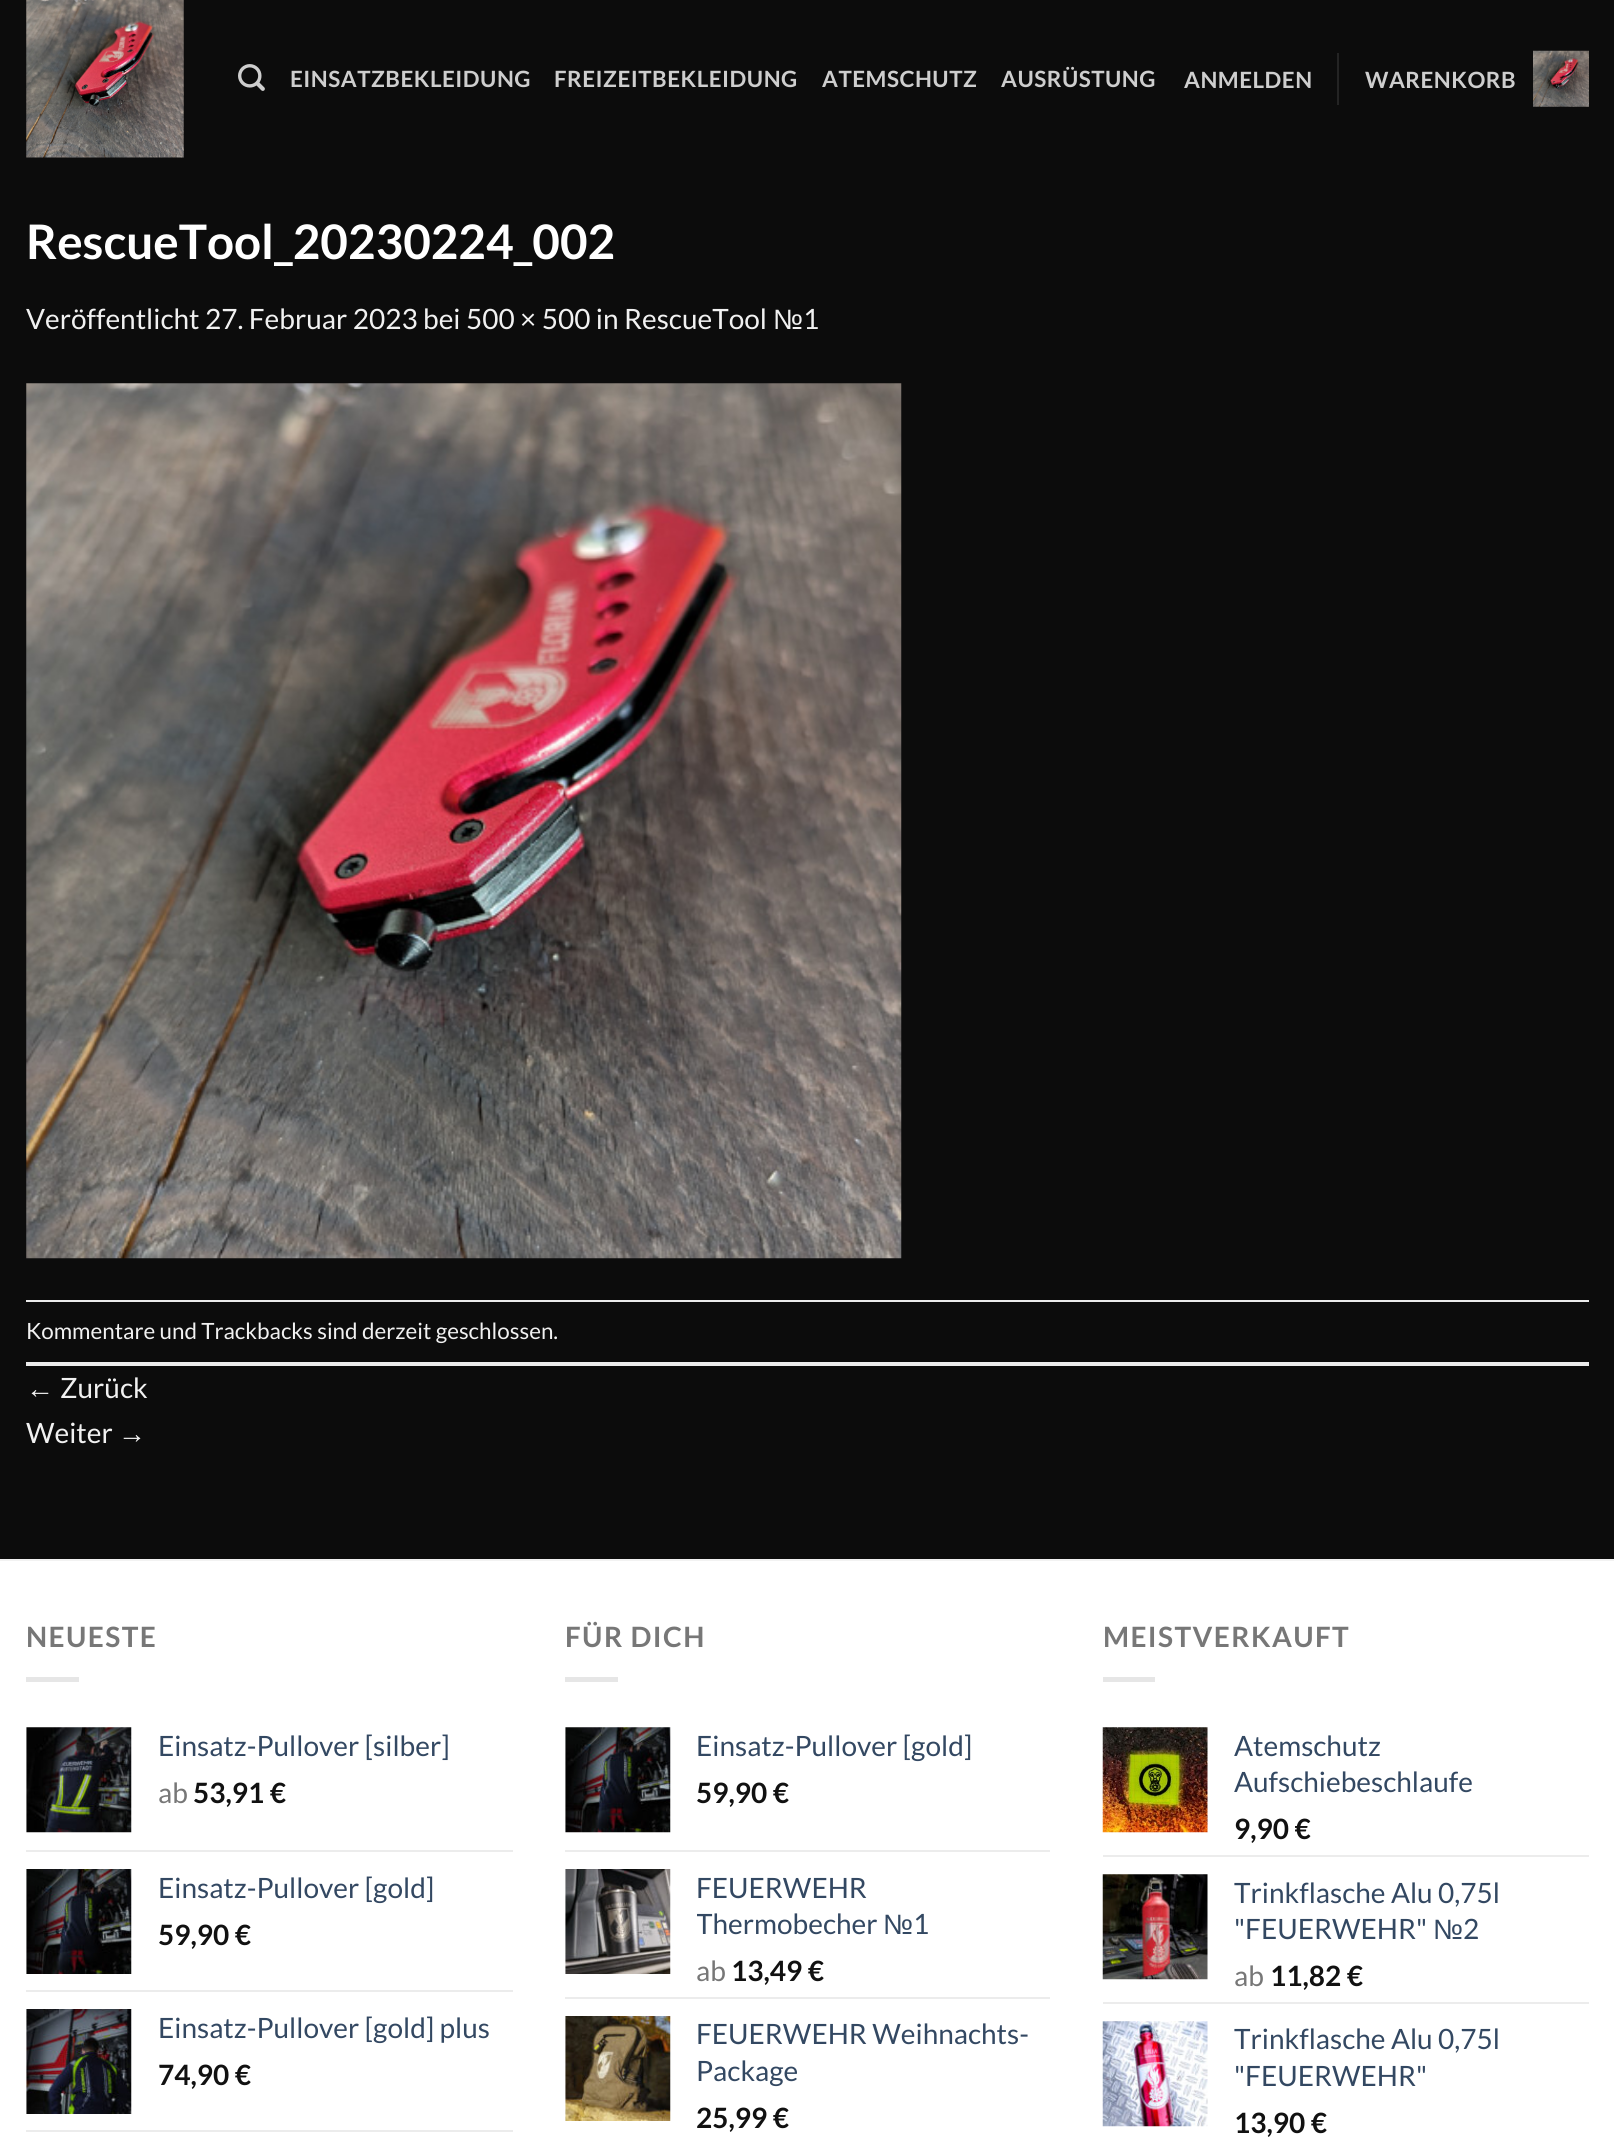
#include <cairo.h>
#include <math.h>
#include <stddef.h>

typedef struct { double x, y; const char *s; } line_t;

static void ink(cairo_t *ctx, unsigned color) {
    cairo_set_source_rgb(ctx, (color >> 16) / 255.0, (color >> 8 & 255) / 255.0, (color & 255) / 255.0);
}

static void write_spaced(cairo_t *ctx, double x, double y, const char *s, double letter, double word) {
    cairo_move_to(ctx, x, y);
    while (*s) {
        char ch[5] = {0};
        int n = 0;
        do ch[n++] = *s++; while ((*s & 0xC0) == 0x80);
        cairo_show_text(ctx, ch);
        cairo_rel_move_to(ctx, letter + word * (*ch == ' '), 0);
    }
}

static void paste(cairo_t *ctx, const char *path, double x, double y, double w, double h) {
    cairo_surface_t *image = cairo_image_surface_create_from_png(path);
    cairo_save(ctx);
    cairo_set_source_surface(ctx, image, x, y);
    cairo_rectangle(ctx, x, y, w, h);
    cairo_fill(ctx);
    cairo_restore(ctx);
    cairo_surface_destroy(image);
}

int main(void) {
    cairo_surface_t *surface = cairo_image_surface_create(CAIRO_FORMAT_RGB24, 1614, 2138);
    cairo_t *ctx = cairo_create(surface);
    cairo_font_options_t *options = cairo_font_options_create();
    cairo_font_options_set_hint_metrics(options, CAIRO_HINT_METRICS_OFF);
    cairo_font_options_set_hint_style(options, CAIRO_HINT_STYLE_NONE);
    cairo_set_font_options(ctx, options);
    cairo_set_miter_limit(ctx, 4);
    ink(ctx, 0x0C0C0C);
    cairo_paint(ctx);
    paste(ctx, "media/1.png", 26, 0, 158, 158);
    paste(ctx, "media/2.png", 238, 64, 27, 27);
    cairo_select_font_face(ctx, "Lato", CAIRO_FONT_SLANT_NORMAL, CAIRO_FONT_WEIGHT_BOLD);
    cairo_set_font_size(ctx, 22.4);
    ink(ctx, 0xCECECE);
    {
        static const line_t items[] = {
            {290, 87, "EINSATZBEKLEIDUNG"},
            {554, 87, "FREIZEITBEKLEIDUNG"},
            {822, 87, "ATEMSCHUTZ"},
            {1001, 87, "AUSRÜSTUNG"},
            {1184, 88, "ANMELDEN"},
        };
        for (size_t i = 0; i < sizeof items / sizeof *items; i++) {
            write_spaced(ctx, items[i].x, items[i].y, items[i].s, 0.5, 0);
        }
    }
    ink(ctx, 0x242424);
    cairo_rectangle(ctx, 1337, 53, 2, 52);
    cairo_fill(ctx);
    ink(ctx, 0xCECECE);
    write_spaced(ctx, 1365, 88, "WARENKORB", 0.5, 0);
    paste(ctx, "media/3.png", 1533, 50, 56, 57);
    cairo_set_font_size(ctx, 47.6);
    ink(ctx, 0xFFFFFF);
    cairo_move_to(ctx, 26, 259);
    cairo_show_text(ctx, "RescueTool_20230224_002");
    cairo_select_font_face(ctx, "Lato", CAIRO_FONT_SLANT_NORMAL, CAIRO_FONT_WEIGHT_NORMAL);
    cairo_set_font_size(ctx, 28);
    ink(ctx, 0xF1F1F1);
    cairo_move_to(ctx, 26, 329);
    cairo_show_text(ctx, "Veröffentlicht 27. Februar 2023 bei 500 × 500 in RescueTool");
    cairo_select_font_face(ctx, "Liberation Sans", CAIRO_FONT_SLANT_NORMAL, CAIRO_FONT_WEIGHT_NORMAL);
    cairo_move_to(ctx, 773, 329);
    cairo_show_text(ctx, "№");
    cairo_select_font_face(ctx, "Lato", CAIRO_FONT_SLANT_NORMAL, CAIRO_FONT_WEIGHT_NORMAL);
    cairo_move_to(ctx, 803, 329);
    cairo_show_text(ctx, "1");
    paste(ctx, "media/4.png", 26, 383, 876, 876);
    ink(ctx, 0xECECEC);
    cairo_rectangle(ctx, 26, 1300, 1563, 2);
    cairo_fill(ctx);
    cairo_rectangle(ctx, 26, 1362, 1563, 4);
    cairo_fill(ctx);
    cairo_set_font_size(ctx, 22.4);
    ink(ctx, 0xF1F1F1);
    cairo_move_to(ctx, 26, 1339);
    cairo_show_text(ctx, "Kommentare und Trackbacks sind derzeit geschlossen.");
    cairo_select_font_face(ctx, "Liberation Sans", CAIRO_FONT_SLANT_NORMAL, CAIRO_FONT_WEIGHT_NORMAL);
    cairo_set_font_size(ctx, 28);
    cairo_move_to(ctx, 26, 1398);
    cairo_show_text(ctx, "←");
    cairo_select_font_face(ctx, "Lato", CAIRO_FONT_SLANT_NORMAL, CAIRO_FONT_WEIGHT_NORMAL);
    cairo_move_to(ctx, 60, 1398);
    cairo_show_text(ctx, "Zurück");
    cairo_move_to(ctx, 26, 1443);
    cairo_show_text(ctx, "Weiter");
    cairo_select_font_face(ctx, "Liberation Sans", CAIRO_FONT_SLANT_NORMAL, CAIRO_FONT_WEIGHT_NORMAL);
    cairo_move_to(ctx, 118, 1443);
    cairo_show_text(ctx, "→");
    ink(ctx, 0xFFFFFF);
    cairo_rectangle(ctx, 0, 1561, 1614, 577);
    cairo_fill(ctx);
    ink(ctx, 0xF2F2F2);
    cairo_rectangle(ctx, 0, 1559, 1614, 2);
    cairo_fill(ctx);
    cairo_select_font_face(ctx, "Lato", CAIRO_FONT_SLANT_NORMAL, CAIRO_FONT_WEIGHT_BOLD);
    ink(ctx, 0x777777);
    write_spaced(ctx, 26, 1647, "NEUESTE", 1.4, 0);
    ink(ctx, 0xE6E6E6);
    cairo_rectangle(ctx, 26, 1677, 53, 5);
    cairo_fill(ctx);
    paste(ctx, "media/5.png", 26, 1727, 106, 106);
    cairo_select_font_face(ctx, "Lato", CAIRO_FONT_SLANT_NORMAL, CAIRO_FONT_WEIGHT_NORMAL);
    ink(ctx, 0x334862);
    cairo_move_to(ctx, 158, 1756);
    cairo_show_text(ctx, "Einsatz-Pullover [silber]");
    ink(ctx, 0x777777);
    cairo_move_to(ctx, 158, 1803);
    cairo_show_text(ctx, "ab");
    cairo_select_font_face(ctx, "Lato", CAIRO_FONT_SLANT_NORMAL, CAIRO_FONT_WEIGHT_BOLD);
    ink(ctx, 0x111111);
    cairo_move_to(ctx, 193, 1803);
    cairo_show_text(ctx, "53,91 €");
    ink(ctx, 0xECECEC);
    cairo_rectangle(ctx, 26, 1850, 487, 2);
    cairo_fill(ctx);
    paste(ctx, "media/6.png", 26, 1869, 106, 105);
    cairo_select_font_face(ctx, "Lato", CAIRO_FONT_SLANT_NORMAL, CAIRO_FONT_WEIGHT_NORMAL);
    ink(ctx, 0x334862);
    cairo_move_to(ctx, 158, 1898);
    cairo_show_text(ctx, "Einsatz-Pullover [gold]");
    cairo_select_font_face(ctx, "Lato", CAIRO_FONT_SLANT_NORMAL, CAIRO_FONT_WEIGHT_BOLD);
    ink(ctx, 0x111111);
    cairo_move_to(ctx, 158, 1945);
    cairo_show_text(ctx, "59,90 €");
    ink(ctx, 0xECECEC);
    cairo_rectangle(ctx, 26, 1990, 487, 2);
    cairo_fill(ctx);
    paste(ctx, "media/7.png", 26, 2009, 106, 105);
    cairo_select_font_face(ctx, "Lato", CAIRO_FONT_SLANT_NORMAL, CAIRO_FONT_WEIGHT_NORMAL);
    ink(ctx, 0x334862);
    cairo_move_to(ctx, 158, 2038);
    cairo_show_text(ctx, "Einsatz-Pullover [gold] plus");
    cairo_select_font_face(ctx, "Lato", CAIRO_FONT_SLANT_NORMAL, CAIRO_FONT_WEIGHT_BOLD);
    ink(ctx, 0x111111);
    cairo_move_to(ctx, 158, 2085);
    cairo_show_text(ctx, "74,90 €");
    ink(ctx, 0xECECEC);
    cairo_rectangle(ctx, 26, 2130, 487, 2);
    cairo_fill(ctx);
    ink(ctx, 0x777777);
    write_spaced(ctx, 565, 1647, "FÜR DICH", 1.4, 0);
    ink(ctx, 0xE6E6E6);
    cairo_rectangle(ctx, 565, 1677, 53, 5);
    cairo_fill(ctx);
    paste(ctx, "media/8.png", 565, 1727, 106, 106);
    cairo_select_font_face(ctx, "Lato", CAIRO_FONT_SLANT_NORMAL, CAIRO_FONT_WEIGHT_NORMAL);
    ink(ctx, 0x334862);
    cairo_move_to(ctx, 696, 1756);
    cairo_show_text(ctx, "Einsatz-Pullover [gold]");
    cairo_select_font_face(ctx, "Lato", CAIRO_FONT_SLANT_NORMAL, CAIRO_FONT_WEIGHT_BOLD);
    ink(ctx, 0x111111);
    cairo_move_to(ctx, 696, 1803);
    cairo_show_text(ctx, "59,90 €");
    ink(ctx, 0xECECEC);
    cairo_rectangle(ctx, 565, 1850, 485, 2);
    cairo_fill(ctx);
    paste(ctx, "media/9.png", 565, 1869, 106, 105);
    cairo_select_font_face(ctx, "Lato", CAIRO_FONT_SLANT_NORMAL, CAIRO_FONT_WEIGHT_NORMAL);
    ink(ctx, 0x334862);
    cairo_move_to(ctx, 696, 1898);
    cairo_show_text(ctx, "FEUERWEHR");
    cairo_save(ctx);
    cairo_rectangle(ctx, 697, 1869, 353, 74);
    cairo_clip(ctx);
    cairo_move_to(ctx, 696, 1934);
    cairo_show_text(ctx, "Thermobecher");
    cairo_restore(ctx);
    cairo_select_font_face(ctx, "Liberation Sans", CAIRO_FONT_SLANT_NORMAL, CAIRO_FONT_WEIGHT_NORMAL);
    cairo_move_to(ctx, 883, 1934);
    cairo_show_text(ctx, "№");
    cairo_select_font_face(ctx, "Lato", CAIRO_FONT_SLANT_NORMAL, CAIRO_FONT_WEIGHT_NORMAL);
    cairo_move_to(ctx, 913, 1934);
    cairo_show_text(ctx, "1");
    ink(ctx, 0x777777);
    cairo_move_to(ctx, 696, 1981);
    cairo_show_text(ctx, "ab");
    cairo_select_font_face(ctx, "Lato", CAIRO_FONT_SLANT_NORMAL, CAIRO_FONT_WEIGHT_BOLD);
    ink(ctx, 0x111111);
    cairo_move_to(ctx, 731, 1981);
    cairo_show_text(ctx, "13,49 €");
    ink(ctx, 0xECECEC);
    cairo_rectangle(ctx, 565, 1997, 485, 2);
    cairo_fill(ctx);
    paste(ctx, "media/10.png", 565, 2016, 106, 105);
    cairo_select_font_face(ctx, "Lato", CAIRO_FONT_SLANT_NORMAL, CAIRO_FONT_WEIGHT_NORMAL);
    ink(ctx, 0x334862);
    cairo_move_to(ctx, 696, 2044);
    cairo_show_text(ctx, "FEUERWEHR Weihnachts-");
    cairo_move_to(ctx, 696, 2081);
    cairo_show_text(ctx, "Package");
    cairo_select_font_face(ctx, "Lato", CAIRO_FONT_SLANT_NORMAL, CAIRO_FONT_WEIGHT_BOLD);
    ink(ctx, 0x111111);
    cairo_move_to(ctx, 696, 2128);
    cairo_show_text(ctx, "25,99 €");
    ink(ctx, 0x777777);
    write_spaced(ctx, 1103, 1647, "MEISTVERKAUFT", 1.4, 0);
    ink(ctx, 0xE6E6E6);
    cairo_rectangle(ctx, 1103, 1677, 52, 5);
    cairo_fill(ctx);
    paste(ctx, "media/11.png", 1102, 1727, 106, 106);
    cairo_select_font_face(ctx, "Lato", CAIRO_FONT_SLANT_NORMAL, CAIRO_FONT_WEIGHT_NORMAL);
    ink(ctx, 0x334862);
    cairo_move_to(ctx, 1234, 1756);
    cairo_show_text(ctx, "Atemschutz");
    cairo_move_to(ctx, 1234, 1792);
    cairo_show_text(ctx, "Aufschiebeschlaufe");
    cairo_select_font_face(ctx, "Lato", CAIRO_FONT_SLANT_NORMAL, CAIRO_FONT_WEIGHT_BOLD);
    ink(ctx, 0x111111);
    cairo_move_to(ctx, 1234, 1839);
    cairo_show_text(ctx, "9,90 €");
    ink(ctx, 0xECECEC);
    cairo_rectangle(ctx, 1103, 1855, 486, 2);
    cairo_fill(ctx);
    paste(ctx, "media/12.png", 1102, 1874, 106, 106);
    cairo_select_font_face(ctx, "Lato", CAIRO_FONT_SLANT_NORMAL, CAIRO_FONT_WEIGHT_NORMAL);
    ink(ctx, 0x334862);
    cairo_move_to(ctx, 1234, 1903);
    cairo_show_text(ctx, "Trinkflasche Alu 0,75l");
    cairo_move_to(ctx, 1234, 1939);
    cairo_show_text(ctx, "\"FEUERWEHR\"");
    cairo_select_font_face(ctx, "Liberation Sans", CAIRO_FONT_SLANT_NORMAL, CAIRO_FONT_WEIGHT_NORMAL);
    cairo_move_to(ctx, 1433, 1939);
    cairo_show_text(ctx, "№");
    cairo_select_font_face(ctx, "Lato", CAIRO_FONT_SLANT_NORMAL, CAIRO_FONT_WEIGHT_NORMAL);
    cairo_move_to(ctx, 1463, 1939);
    cairo_show_text(ctx, "2");
    ink(ctx, 0x777777);
    cairo_move_to(ctx, 1234, 1986);
    cairo_show_text(ctx, "ab");
    cairo_select_font_face(ctx, "Lato", CAIRO_FONT_SLANT_NORMAL, CAIRO_FONT_WEIGHT_BOLD);
    ink(ctx, 0x111111);
    cairo_move_to(ctx, 1270, 1986);
    cairo_show_text(ctx, "11,82 €");
    ink(ctx, 0xECECEC);
    cairo_rectangle(ctx, 1103, 2002, 486, 2);
    cairo_fill(ctx);
    paste(ctx, "media/13.png", 1102, 2021, 106, 106);
    cairo_select_font_face(ctx, "Lato", CAIRO_FONT_SLANT_NORMAL, CAIRO_FONT_WEIGHT_NORMAL);
    ink(ctx, 0x334862);
    cairo_move_to(ctx, 1234, 2049);
    cairo_show_text(ctx, "Trinkflasche Alu 0,75l");
    cairo_move_to(ctx, 1234, 2086);
    cairo_show_text(ctx, "\"FEUERWEHR\"");
    cairo_select_font_face(ctx, "Lato", CAIRO_FONT_SLANT_NORMAL, CAIRO_FONT_WEIGHT_BOLD);
    ink(ctx, 0x111111);
    cairo_move_to(ctx, 1234, 2133);
    cairo_show_text(ctx, "13,90 €");
    cairo_surface_write_to_png(surface, "image.png");
    cairo_font_options_destroy(options);
    cairo_destroy(ctx);
    cairo_surface_destroy(surface);
    return 0;
}
